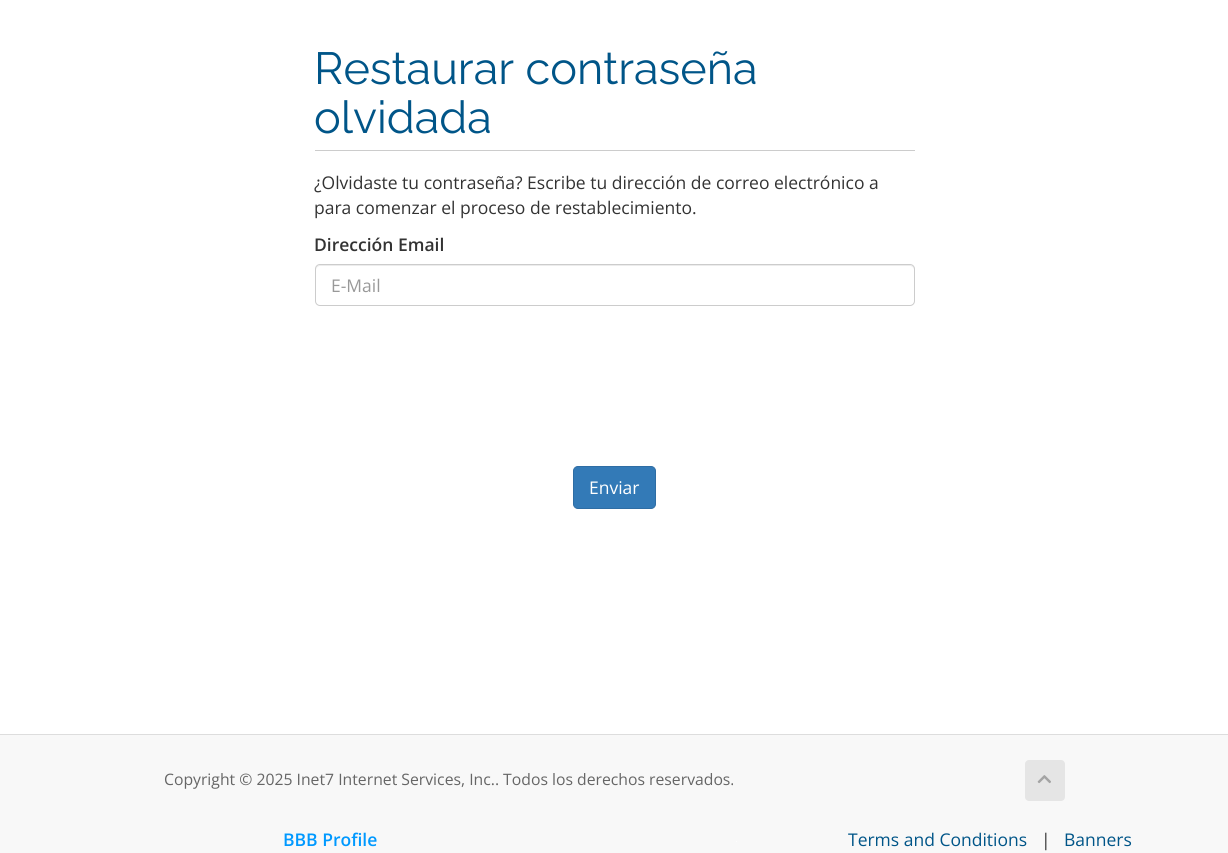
#include <cairo.h>
#include <math.h>
#include <stddef.h>


static void ink(cairo_t *ctx, unsigned color) {
    cairo_set_source_rgb(ctx, (color >> 16) / 255.0, (color >> 8 & 255) / 255.0, (color & 255) / 255.0);
}

static void round_path(cairo_t *ctx, double x, double y, double w, double h, double r) {
    cairo_new_sub_path(ctx);
    cairo_arc(ctx, x + w - r, y + h - r, r, 0, M_PI / 2);
    cairo_arc(ctx, x + r, y + h - r, r, M_PI / 2, M_PI);
    cairo_arc(ctx, x + r, y + r, r, M_PI, 1.5 * M_PI);
    cairo_arc(ctx, x + w - r, y + r, r, 1.5 * M_PI, 2 * M_PI);
    cairo_close_path(ctx);
}

static void paste(cairo_t *ctx, const char *path, double x, double y, double w, double h) {
    cairo_surface_t *image = cairo_image_surface_create_from_png(path);
    cairo_save(ctx);
    cairo_set_source_surface(ctx, image, x, y);
    cairo_rectangle(ctx, x, y, w, h);
    cairo_fill(ctx);
    cairo_restore(ctx);
    cairo_surface_destroy(image);
}

int main(void) {
    cairo_surface_t *surface = cairo_image_surface_create(CAIRO_FORMAT_RGB24, 1228, 853);
    cairo_t *ctx = cairo_create(surface);
    cairo_font_options_t *options = cairo_font_options_create();
    cairo_font_options_set_hint_metrics(options, CAIRO_HINT_METRICS_OFF);
    cairo_font_options_set_hint_style(options, CAIRO_HINT_STYLE_NONE);
    cairo_set_font_options(ctx, options);
    cairo_set_miter_limit(ctx, 4);
    ink(ctx, 0xF8F8F8);
    cairo_paint(ctx);
    ink(ctx, 0xFFFFFF);
    cairo_rectangle(ctx, 0, 0, 1228, 734);
    cairo_fill(ctx);
    ink(ctx, 0xCCCCCC);
    cairo_rectangle(ctx, 315, 150, 600, 1);
    cairo_fill(ctx);
    cairo_select_font_face(ctx, "Raleway", CAIRO_FONT_SLANT_NORMAL, CAIRO_FONT_WEIGHT_NORMAL);
    cairo_set_font_size(ctx, 45);
    ink(ctx, 0x005588);
    cairo_move_to(ctx, 314, 84);
    cairo_show_text(ctx, "Restaurar contraseña");
    cairo_move_to(ctx, 314, 133);
    cairo_show_text(ctx, "olvidada");
    cairo_select_font_face(ctx, "Open Sans", CAIRO_FONT_SLANT_NORMAL, CAIRO_FONT_WEIGHT_NORMAL);
    cairo_set_font_size(ctx, 17.5);
    ink(ctx, 0x333333);
    cairo_move_to(ctx, 314, 189);
    cairo_show_text(ctx, "¿Olvidaste tu contraseña? Escribe tu dirección de correo electrónico a");
    cairo_move_to(ctx, 314, 214);
    cairo_show_text(ctx, "para comenzar el proceso de restablecimiento.");
    cairo_select_font_face(ctx, "Open Sans SemiBold", CAIRO_FONT_SLANT_NORMAL, CAIRO_FONT_WEIGHT_NORMAL);
    cairo_move_to(ctx, 314, 251);
    cairo_show_text(ctx, "Dirección Email");
    ink(ctx, 0xECECEC);
    cairo_new_path(ctx);
    cairo_move_to(ctx, 320, 266);
    cairo_line_to(ctx, 910, 266);
    cairo_curve_to(ctx, 912, 266, 914, 268, 914, 270);
    cairo_line_to(ctx, 914, 269);
    cairo_curve_to(ctx, 914, 267, 912, 265, 910, 265);
    cairo_line_to(ctx, 320, 265);
    cairo_curve_to(ctx, 318, 265, 316, 267, 316, 269);
    cairo_line_to(ctx, 316, 270);
    cairo_curve_to(ctx, 316, 268, 318, 266, 320, 266);
    cairo_close_path(ctx);
    cairo_fill(ctx);
    round_path(ctx, 315.5, 264.5, 599, 41, 4.5);
    ink(ctx, 0xCCCCCC);
    cairo_set_line_width(ctx, 1);
    cairo_stroke(ctx);
    cairo_select_font_face(ctx, "Open Sans", CAIRO_FONT_SLANT_NORMAL, CAIRO_FONT_WEIGHT_NORMAL);
    ink(ctx, 0x999999);
    cairo_move_to(ctx, 331, 292);
    cairo_show_text(ctx, "E-Mail");
    ink(ctx, 0x337AB7);
    round_path(ctx, 573.5, 466.5, 82, 42, 4.5);
    cairo_fill_preserve(ctx);
    ink(ctx, 0x2E6DA4);
    cairo_stroke(ctx);
    ink(ctx, 0xFFFFFF);
    cairo_move_to(ctx, 589, 494);
    cairo_show_text(ctx, "Enviar");
    ink(ctx, 0xDDDDDD);
    cairo_rectangle(ctx, 0, 734, 1228, 1);
    cairo_fill(ctx);
    cairo_set_font_size(ctx, 15.75);
    ink(ctx, 0x666666);
    cairo_move_to(ctx, 164, 785);
    cairo_show_text(ctx, "Copyright © 2025 Inet7 Internet Services, Inc.. Todos los derechos reservados.");
    ink(ctx, 0xE5E5E5);
    round_path(ctx, 1025, 760, 40, 41, 4);
    cairo_fill(ctx);
    paste(ctx, "media/1.png", 1037, 775, 14, 9);
    cairo_select_font_face(ctx, "Open Sans SemiBold", CAIRO_FONT_SLANT_NORMAL, CAIRO_FONT_WEIGHT_NORMAL);
    cairo_set_font_size(ctx, 17.5);
    ink(ctx, 0x0099FF);
    cairo_move_to(ctx, 283, 846);
    cairo_show_text(ctx, "BBB Profile");
    ink(ctx, 0xFDFDFD);
    cairo_rectangle(ctx, 736, 841, 1, 1);
    cairo_fill(ctx);
    cairo_select_font_face(ctx, "Open Sans", CAIRO_FONT_SLANT_NORMAL, CAIRO_FONT_WEIGHT_NORMAL);
    ink(ctx, 0x005588);
    cairo_move_to(ctx, 848, 846);
    cairo_show_text(ctx, "Terms and Conditions");
    ink(ctx, 0x333333);
    cairo_move_to(ctx, 1041, 846);
    cairo_show_text(ctx, "|");
    ink(ctx, 0x005588);
    cairo_move_to(ctx, 1064, 846);
    cairo_show_text(ctx, "Banners");
    cairo_surface_write_to_png(surface, "image.png");
    cairo_font_options_destroy(options);
    cairo_destroy(ctx);
    cairo_surface_destroy(surface);
    return 0;
}
